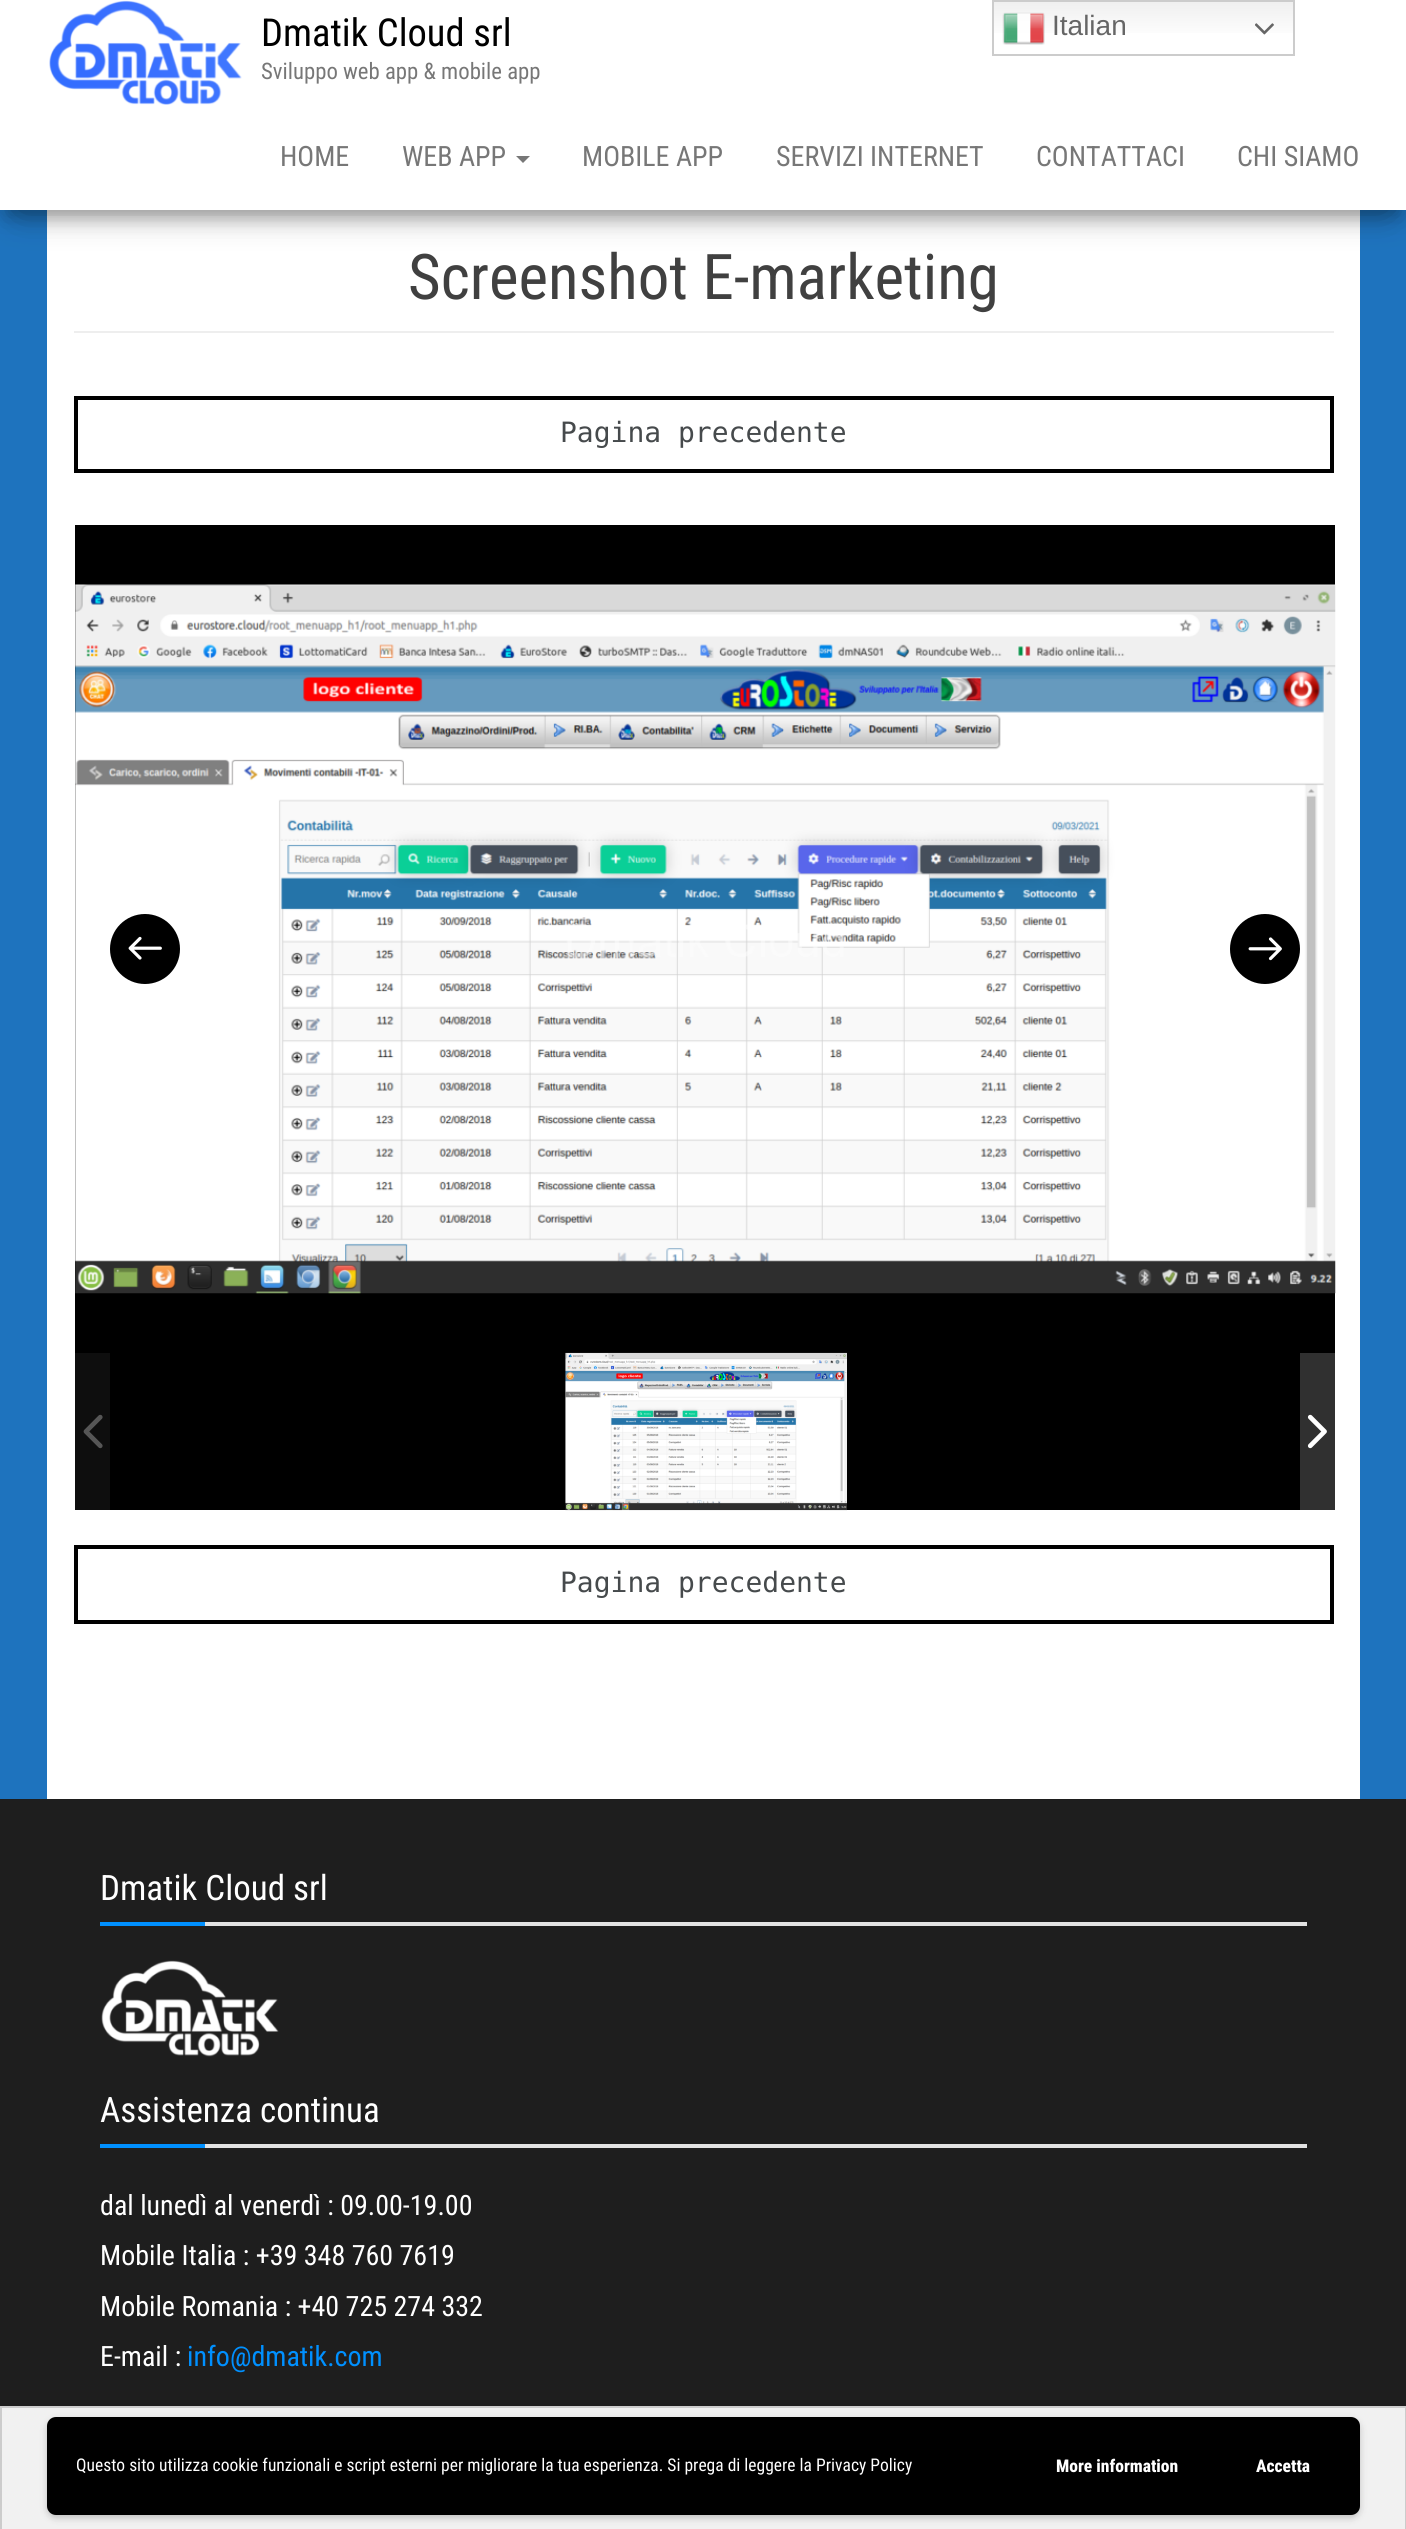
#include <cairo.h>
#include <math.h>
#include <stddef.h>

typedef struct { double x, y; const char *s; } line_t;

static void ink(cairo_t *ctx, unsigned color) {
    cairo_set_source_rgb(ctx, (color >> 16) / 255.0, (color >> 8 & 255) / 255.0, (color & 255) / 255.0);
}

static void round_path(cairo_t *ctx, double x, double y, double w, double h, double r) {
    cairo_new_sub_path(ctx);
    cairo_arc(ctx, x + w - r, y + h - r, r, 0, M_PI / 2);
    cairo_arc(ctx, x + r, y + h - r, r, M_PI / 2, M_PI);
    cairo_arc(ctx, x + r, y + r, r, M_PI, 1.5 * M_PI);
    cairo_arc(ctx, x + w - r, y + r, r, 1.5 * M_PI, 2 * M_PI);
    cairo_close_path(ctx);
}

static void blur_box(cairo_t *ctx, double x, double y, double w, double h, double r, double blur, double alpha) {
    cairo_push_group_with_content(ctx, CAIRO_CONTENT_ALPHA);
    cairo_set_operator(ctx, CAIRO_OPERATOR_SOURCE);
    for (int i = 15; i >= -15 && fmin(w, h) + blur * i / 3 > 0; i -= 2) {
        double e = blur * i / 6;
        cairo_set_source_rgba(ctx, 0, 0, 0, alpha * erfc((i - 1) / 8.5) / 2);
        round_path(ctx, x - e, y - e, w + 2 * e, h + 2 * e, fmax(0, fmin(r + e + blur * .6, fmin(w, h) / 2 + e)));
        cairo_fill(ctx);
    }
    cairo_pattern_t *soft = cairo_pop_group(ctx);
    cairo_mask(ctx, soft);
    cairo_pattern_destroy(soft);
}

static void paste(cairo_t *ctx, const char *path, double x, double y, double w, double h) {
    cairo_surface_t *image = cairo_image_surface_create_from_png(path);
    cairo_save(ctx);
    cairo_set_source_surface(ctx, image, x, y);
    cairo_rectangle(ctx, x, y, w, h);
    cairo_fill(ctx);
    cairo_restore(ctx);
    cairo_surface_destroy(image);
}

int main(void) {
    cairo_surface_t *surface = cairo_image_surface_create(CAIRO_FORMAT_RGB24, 1406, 2529);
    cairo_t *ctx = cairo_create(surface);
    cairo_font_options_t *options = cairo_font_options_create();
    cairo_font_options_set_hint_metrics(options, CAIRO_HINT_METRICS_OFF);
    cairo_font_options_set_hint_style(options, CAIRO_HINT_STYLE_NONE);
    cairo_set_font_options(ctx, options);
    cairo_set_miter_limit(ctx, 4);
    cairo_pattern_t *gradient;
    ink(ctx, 0x1E73BE);
    cairo_paint(ctx);
    ink(ctx, 0xFFFFFF);
    cairo_rectangle(ctx, 47, 210, 1313, 1589);
    cairo_fill(ctx);
    ink(ctx, 0x000000);
    blur_box(ctx, 9, 23, 1389, 192, 0, 9, 0.2);
    blur_box(ctx, 0, 5, 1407, 210, 0, 17.5, 0.12);
    blur_box(ctx, 21, 39, 1365, 168, 0, 17.5, 0.42);
    ink(ctx, 0xFFFFFF);
    cairo_rectangle(ctx, 0, 0, 1406, 210);
    cairo_fill(ctx);
    gradient = cairo_pattern_create_linear(1144, 0, 1144, 56);
    cairo_pattern_add_color_stop_rgba(gradient, 0, 0.937, 0.937, 0.937, 1);
    cairo_pattern_add_color_stop_rgba(gradient, 0.7, 1, 1, 1, 1);
    cairo_set_source(ctx, gradient);
    cairo_pattern_destroy(gradient);
    cairo_rectangle(ctx, 994, 2, 299, 31);
    cairo_fill(ctx);
    cairo_rectangle(ctx, 993, 1, 301, 54);
    ink(ctx, 0xCCCCCC);
    cairo_stroke(ctx);
    paste(ctx, "media/1.png", 1002, 12, 43, 33);
    cairo_select_font_face(ctx, "Liberation Sans", CAIRO_FONT_SLANT_NORMAL, CAIRO_FONT_WEIGHT_NORMAL);
    cairo_set_font_size(ctx, 28);
    ink(ctx, 0x666666);
    cairo_move_to(ctx, 1052, 35);
    cairo_show_text(ctx, "Italian");
    paste(ctx, "media/2.png", 1255, 23, 19, 12);
    paste(ctx, "media/3.png", 49, 0, 193, 105);
    cairo_select_font_face(ctx, "Roboto Condensed", CAIRO_FONT_SLANT_NORMAL, CAIRO_FONT_WEIGHT_NORMAL);
    cairo_set_font_size(ctx, 38.5);
    ink(ctx, 0x000000);
    cairo_move_to(ctx, 261, 46);
    cairo_show_text(ctx, "Dmatik Cloud srl");
    cairo_set_font_size(ctx, 22.75);
    ink(ctx, 0x777777);
    cairo_move_to(ctx, 261, 79);
    cairo_show_text(ctx, "Sviluppo web app & mobile app");
    cairo_set_font_size(ctx, 28);
    cairo_move_to(ctx, 280, 166);
    cairo_show_text(ctx, "HOME");
    cairo_move_to(ctx, 402, 166);
    cairo_show_text(ctx, "WEB APP");
    cairo_new_path(ctx);
    cairo_move_to(ctx, 516, 156);
    cairo_line_to(ctx, 530, 156);
    cairo_line_to(ctx, 523, 163);
    cairo_close_path(ctx);
    cairo_fill(ctx);
    {
        static const line_t items[] = {
            {582, 166, "MOBILE APP"},
            {776, 166, "SERVIZI INTERNET"},
            {1036, 166, "CONTATTACI"},
            {1237, 166, "CHI SIAMO"},
        };
        for (size_t i = 0; i < sizeof items / sizeof *items; i++) {
            cairo_move_to(ctx, items[i].x, items[i].y);
            cairo_show_text(ctx, items[i].s);
        }
    }
    ink(ctx, 0xEEEEEE);
    cairo_rectangle(ctx, 74, 331, 1260, 2);
    cairo_fill(ctx);
    cairo_set_font_size(ctx, 63);
    ink(ctx, 0x404040);
    cairo_move_to(ctx, 408, 299);
    cairo_show_text(ctx, "Screenshot E-marketing");
    cairo_rectangle(ctx, 76, 398, 1256, 73);
    ink(ctx, 0x000000);
    cairo_set_line_width(ctx, 4);
    cairo_stroke(ctx);
    cairo_select_font_face(ctx, "DejaVu Sans Mono", CAIRO_FONT_SLANT_NORMAL, CAIRO_FONT_WEIGHT_NORMAL);
    cairo_set_font_size(ctx, 28);
    ink(ctx, 0x464A4C);
    cairo_move_to(ctx, 560, 442);
    cairo_show_text(ctx, "Pagina precedente");
    ink(ctx, 0x000000);
    cairo_rectangle(ctx, 75, 525, 1260, 985);
    cairo_fill(ctx);
    paste(ctx, "media/4.png", 75, 584, 1261, 710);
    cairo_arc(ctx, 145, 949, 35, 0, 2 * M_PI);
    cairo_fill(ctx);
    paste(ctx, "media/5.png", 128, 936, 34, 24);
    cairo_arc(ctx, 1265, 949, 35, 0, 2 * M_PI);
    cairo_fill(ctx);
    paste(ctx, "media/6.png", 1248, 937, 34, 24);
    ink(ctx, 0x0E0E0E);
    cairo_rectangle(ctx, 75, 1353, 35, 157);
    cairo_fill(ctx);
    paste(ctx, "media/7.png", 83, 1414, 20, 35);
    paste(ctx, "media/8.png", 565, 1352, 282, 159);
    ink(ctx, 0x303030);
    cairo_rectangle(ctx, 1300, 1353, 35, 157);
    cairo_fill(ctx);
    paste(ctx, "media/9.png", 1307, 1414, 20, 35);
    cairo_rectangle(ctx, 76, 1547, 1256, 75);
    ink(ctx, 0x000000);
    cairo_stroke(ctx);
    ink(ctx, 0x464A4C);
    cairo_move_to(ctx, 560, 1592);
    cairo_show_text(ctx, "Pagina precedente");
    ink(ctx, 0x1E1E1E);
    cairo_rectangle(ctx, 0, 1799, 1406, 607);
    cairo_fill(ctx);
    ink(ctx, 0xE3E3E3);
    cairo_rectangle(ctx, 205, 1922, 1102, 4);
    cairo_fill(ctx);
    cairo_select_font_face(ctx, "Roboto Condensed", CAIRO_FONT_SLANT_NORMAL, CAIRO_FONT_WEIGHT_NORMAL);
    cairo_set_font_size(ctx, 35);
    ink(ctx, 0xFFFFFF);
    cairo_move_to(ctx, 100, 1900);
    cairo_show_text(ctx, "Dmatik Cloud srl");
    ink(ctx, 0x0090FF);
    cairo_rectangle(ctx, 100, 1922, 105, 4);
    cairo_fill(ctx);
    paste(ctx, "media/10.png", 101, 1960, 178, 97);
    ink(ctx, 0xE3E3E3);
    cairo_rectangle(ctx, 205, 2144, 1102, 4);
    cairo_fill(ctx);
    ink(ctx, 0xFFFFFF);
    cairo_move_to(ctx, 100, 2122);
    cairo_show_text(ctx, "Assistenza continua");
    ink(ctx, 0x0090FF);
    cairo_rectangle(ctx, 100, 2144, 105, 4);
    cairo_fill(ctx);
    cairo_set_font_size(ctx, 28);
    ink(ctx, 0xFFFFFF);
    {
        static const line_t items[] = {
            {100, 2215, "dal lunedì al venerdì : 09.00-19.00"},
            {100, 2265, "Mobile Italia : +39 348 760 7619"},
            {100, 2316, "Mobile Romania : +40 725 274 332"},
            {100, 2366, "E-mail :"},
        };
        for (size_t i = 0; i < sizeof items / sizeof *items; i++) {
            cairo_move_to(ctx, items[i].x, items[i].y);
            cairo_show_text(ctx, items[i].s);
        }
    }
    ink(ctx, 0x0090FF);
    cairo_move_to(ctx, 187, 2366);
    cairo_show_text(ctx, "info@dmatik.com");
    ink(ctx, 0xF1F1F1);
    cairo_rectangle(ctx, 1, 2407, 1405, 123);
    cairo_fill_preserve(ctx);
    ink(ctx, 0xCCCCCC);
    cairo_set_line_width(ctx, 2);
    cairo_stroke(ctx);
    ink(ctx, 0x000000);
    blur_box(ctx, 47, 2420, 1313, 98, 9, 3.5, 0.2);
    ink(ctx, 0x000000);
    round_path(ctx, 47, 2417, 1313, 98, 9);
    cairo_fill(ctx);
    cairo_set_font_size(ctx, 17.5);
    ink(ctx, 0xFFFFFF);
    cairo_move_to(ctx, 76, 2471);
    cairo_show_text(ctx, "Questo sito utilizza cookie funzionali e script esterni per migliorare la tua esperienza. Si prega di leggere la Privacy Policy");
    cairo_select_font_face(ctx, "Roboto Condensed ExtraBold", CAIRO_FONT_SLANT_NORMAL, CAIRO_FONT_WEIGHT_NORMAL);
    cairo_move_to(ctx, 1056, 2472);
    cairo_show_text(ctx, "More information");
    cairo_move_to(ctx, 1256, 2472);
    cairo_show_text(ctx, "Accetta");
    cairo_surface_write_to_png(surface, "image.png");
    cairo_font_options_destroy(options);
    cairo_destroy(ctx);
    cairo_surface_destroy(surface);
    return 0;
}
